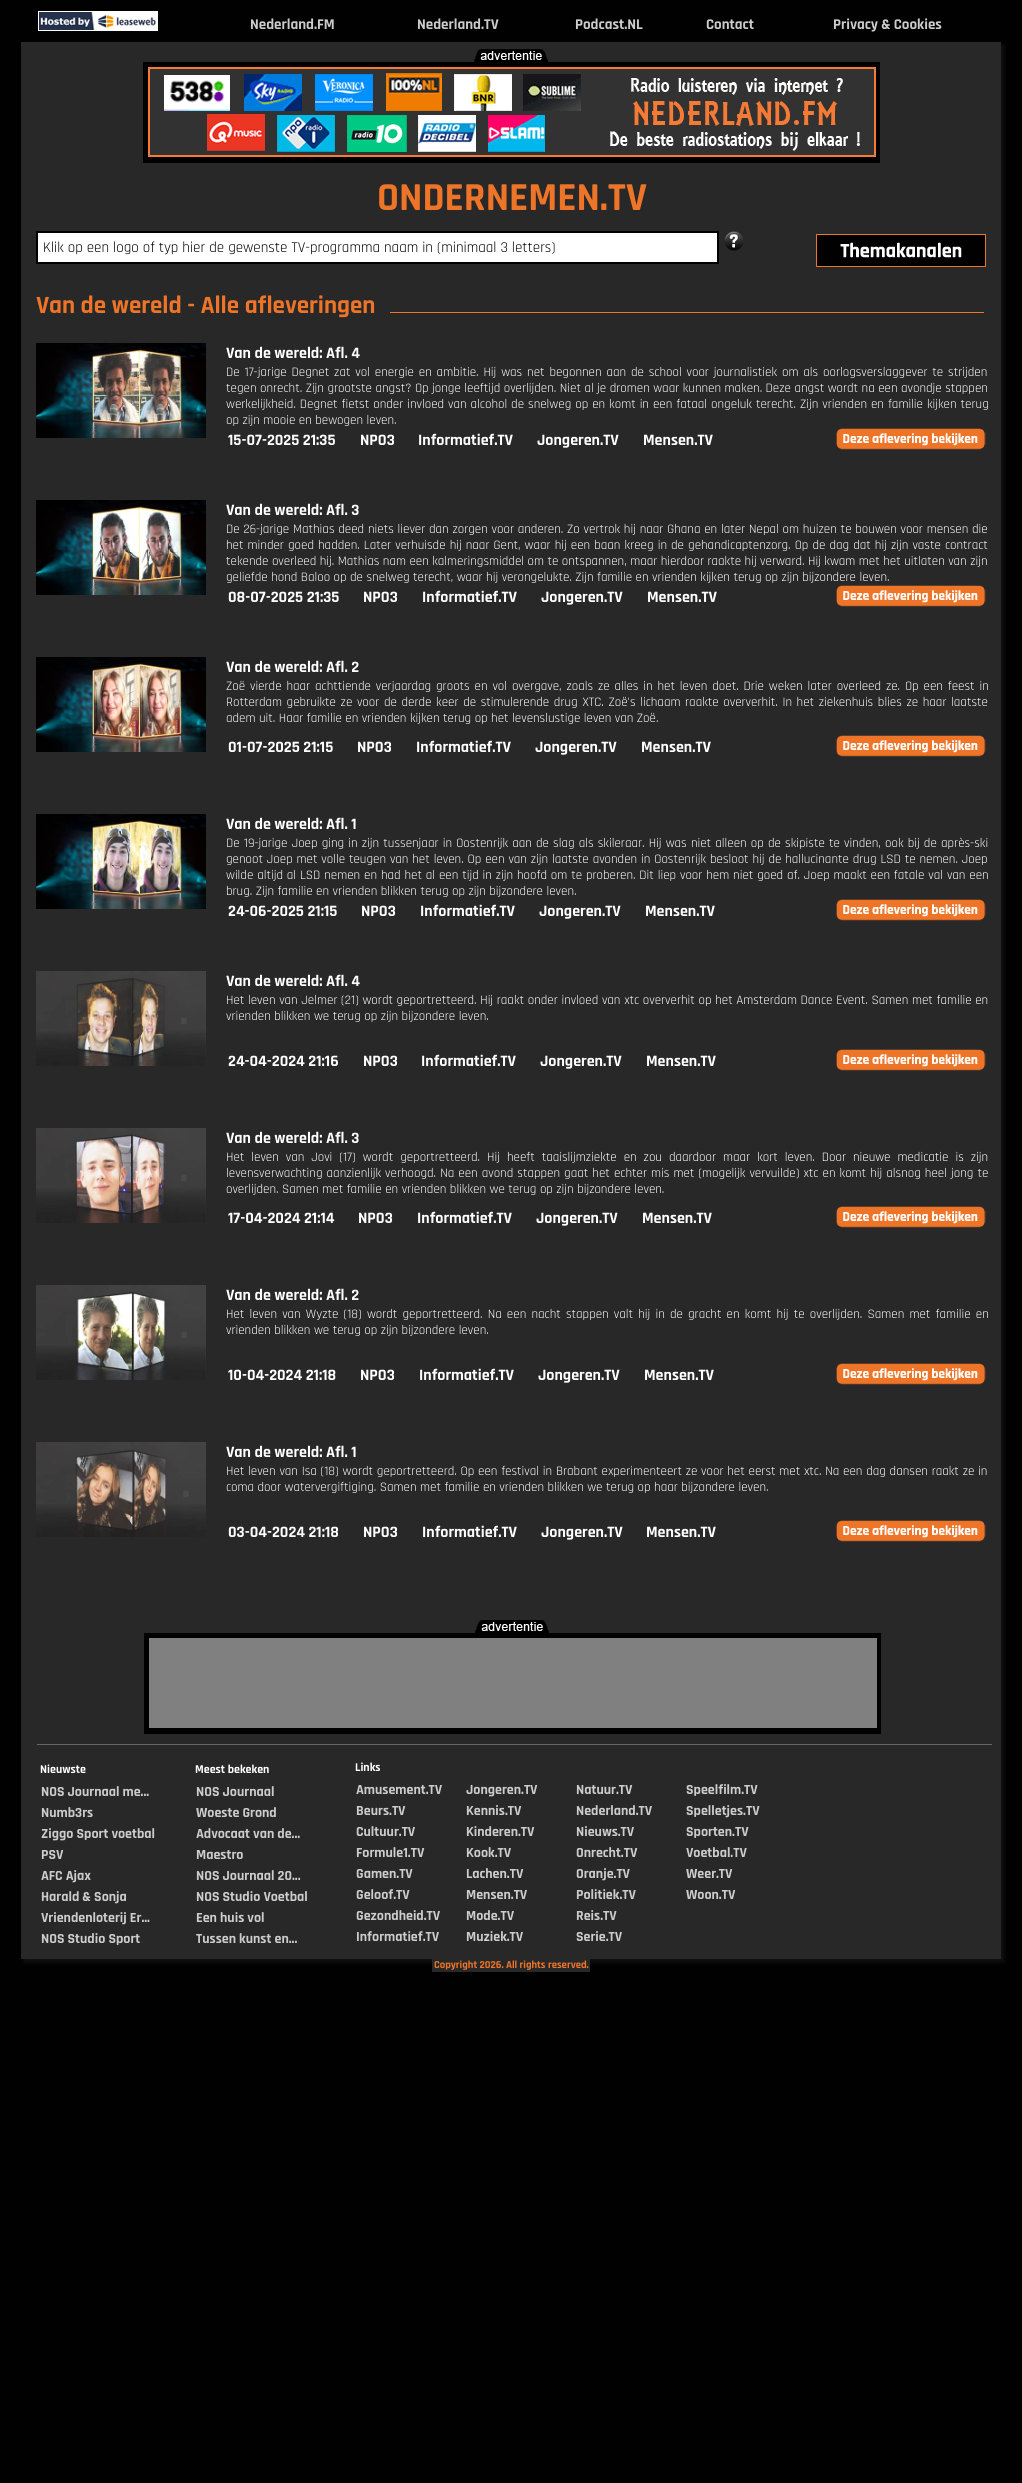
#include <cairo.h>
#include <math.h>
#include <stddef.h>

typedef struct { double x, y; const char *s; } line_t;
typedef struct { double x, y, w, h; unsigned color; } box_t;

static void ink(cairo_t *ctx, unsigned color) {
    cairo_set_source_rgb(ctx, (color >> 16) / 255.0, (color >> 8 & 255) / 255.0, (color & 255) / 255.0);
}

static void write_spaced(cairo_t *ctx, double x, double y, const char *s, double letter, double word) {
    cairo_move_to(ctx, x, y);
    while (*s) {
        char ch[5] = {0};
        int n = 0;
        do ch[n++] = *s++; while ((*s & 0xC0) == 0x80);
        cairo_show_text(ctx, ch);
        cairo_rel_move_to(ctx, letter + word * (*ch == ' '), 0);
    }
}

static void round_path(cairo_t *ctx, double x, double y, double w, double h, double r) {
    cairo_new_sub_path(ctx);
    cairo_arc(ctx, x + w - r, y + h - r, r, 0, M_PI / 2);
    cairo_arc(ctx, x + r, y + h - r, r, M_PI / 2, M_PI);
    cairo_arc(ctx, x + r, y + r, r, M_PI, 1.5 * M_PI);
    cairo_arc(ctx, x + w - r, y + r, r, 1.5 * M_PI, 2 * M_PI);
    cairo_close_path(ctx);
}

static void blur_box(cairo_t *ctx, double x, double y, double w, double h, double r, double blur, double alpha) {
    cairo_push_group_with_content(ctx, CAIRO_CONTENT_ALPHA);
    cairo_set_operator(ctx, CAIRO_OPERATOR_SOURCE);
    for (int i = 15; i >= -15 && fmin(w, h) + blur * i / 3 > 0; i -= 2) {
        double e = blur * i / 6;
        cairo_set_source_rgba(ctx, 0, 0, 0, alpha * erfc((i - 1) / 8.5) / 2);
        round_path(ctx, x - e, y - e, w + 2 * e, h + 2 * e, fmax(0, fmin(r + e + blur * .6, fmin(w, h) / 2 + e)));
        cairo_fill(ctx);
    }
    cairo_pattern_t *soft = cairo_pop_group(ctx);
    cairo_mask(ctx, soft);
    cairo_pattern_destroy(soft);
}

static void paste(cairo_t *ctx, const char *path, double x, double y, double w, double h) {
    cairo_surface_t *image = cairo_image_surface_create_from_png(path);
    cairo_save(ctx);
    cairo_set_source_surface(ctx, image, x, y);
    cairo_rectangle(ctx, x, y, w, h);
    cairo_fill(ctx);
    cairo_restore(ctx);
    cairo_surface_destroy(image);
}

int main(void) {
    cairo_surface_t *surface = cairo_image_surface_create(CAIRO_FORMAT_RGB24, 1022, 2483);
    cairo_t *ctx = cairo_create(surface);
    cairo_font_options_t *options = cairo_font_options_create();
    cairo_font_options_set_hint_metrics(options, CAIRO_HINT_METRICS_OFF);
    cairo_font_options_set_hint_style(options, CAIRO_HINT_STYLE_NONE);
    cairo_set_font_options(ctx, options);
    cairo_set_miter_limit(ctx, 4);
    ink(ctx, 0x010101);
    cairo_paint(ctx);
    paste(ctx, "media/1.png", 38, 11, 120, 20);
    cairo_select_font_face(ctx, "Rajdhani", CAIRO_FONT_SLANT_NORMAL, CAIRO_FONT_WEIGHT_BOLD);
    cairo_set_font_size(ctx, 15);
    ink(ctx, 0xCCCCCC);
    {
        static const line_t items[] = {
            {250, 29, "Nederland.FM"},
            {417, 29, "Nederland.TV"},
            {575, 29, "Podcast.NL"},
            {706, 29, "Contact"},
            {833, 29, "Privacy & Cookies"},
        };
        for (size_t i = 0; i < sizeof items / sizeof *items; i++) {
            cairo_move_to(ctx, items[i].x, items[i].y);
            cairo_show_text(ctx, items[i].s);
        }
    }
    ink(ctx, 0x111111);
    blur_box(ctx, 24, 45, 980, 1917, 0, 2, 1);
    ink(ctx, 0x282828);
    cairo_rectangle(ctx, 21, 42, 980, 1917);
    cairo_fill(ctx);
    paste(ctx, "media/2.png", 474, 49, 74, 13);
    ink(ctx, 0x010101);
    cairo_rectangle(ctx, 143, 62, 737, 101);
    cairo_fill(ctx);
    paste(ctx, "media/3.png", 148, 67, 728, 90);
    cairo_set_font_size(ctx, 40);
    ink(ctx, 0xEE7428);
    cairo_move_to(ctx, 377, 210);
    cairo_show_text(ctx, "ONDERNEMEN.TV");
    ink(ctx, 0xFFFFFF);
    cairo_rectangle(ctx, 37, 232, 681, 31);
    cairo_fill_preserve(ctx);
    ink(ctx, 0x000000);
    cairo_stroke(ctx);
    cairo_select_font_face(ctx, "Rajdhani", CAIRO_FONT_SLANT_NORMAL, CAIRO_FONT_WEIGHT_NORMAL);
    cairo_set_font_size(ctx, 15);
    cairo_move_to(ctx, 43, 252);
    cairo_show_text(ctx, "Klik op een logo of typ hier de gewenste TV-programma naam in (minimaal 3 letters)");
    paste(ctx, "media/4.png", 724, 231, 19, 20);
    paste(ctx, "media/5.png", 816, 234, 170, 33);
    cairo_select_font_face(ctx, "Rajdhani", CAIRO_FONT_SLANT_NORMAL, CAIRO_FONT_WEIGHT_BOLD);
    cairo_set_font_size(ctx, 25);
    ink(ctx, 0xEE7428);
    cairo_move_to(ctx, 36, 313);
    cairo_show_text(ctx, "Van de wereld - Alle afleveringen");
    cairo_rectangle(ctx, 390, 312, 594, 1);
    cairo_fill(ctx);
    paste(ctx, "media/6.png", 36, 343, 170, 95);
    cairo_set_font_size(ctx, 16);
    ink(ctx, 0xFFFFFF);
    cairo_move_to(ctx, 226, 358);
    cairo_show_text(ctx, "Van de wereld: Afl. 4");
    cairo_select_font_face(ctx, "Rajdhani", CAIRO_FONT_SLANT_NORMAL, CAIRO_FONT_WEIGHT_NORMAL);
    cairo_set_font_size(ctx, 13);
    write_spaced(ctx, 226, 376, "De 17-jarige Degnet zat vol energie en ambitie. Hij was net begonnen aan de school voor journalistiek om als oorlogsverslaggever te strijden", 0, 1.4);
    cairo_move_to(ctx, 226, 392);
    cairo_show_text(ctx, "tegen onrecht. Zijn grootste angst? Op jonge leeftijd overlijden. Niet al je dromen waar kunnen maken. Deze angst wordt na een avondje stappen");
    write_spaced(ctx, 226, 408, "werkelijkheid. Degnet fietst onder invloed van alcohol de snelweg op en komt in een fataal ongeluk terecht. Zijn vrienden en familie kijken terug", 0, 0.5);
    cairo_move_to(ctx, 226, 424);
    cairo_show_text(ctx, "op zijn mooie en bewogen leven.");
    cairo_select_font_face(ctx, "Rajdhani", CAIRO_FONT_SLANT_NORMAL, CAIRO_FONT_WEIGHT_BOLD);
    cairo_set_font_size(ctx, 16);
    {
        static const line_t items[] = {
            {228, 445, "15-07-2025 21:35"},
            {360, 445, "NPO3"},
            {418, 445, "Informatief.TV"},
            {537, 445, "Jongeren.TV"},
            {643, 445, "Mensen.TV"},
        };
        for (size_t i = 0; i < sizeof items / sizeof *items; i++) {
            cairo_move_to(ctx, items[i].x, items[i].y);
            cairo_show_text(ctx, items[i].s);
        }
    }
    paste(ctx, "media/7.png", 836, 428, 150, 22);
    paste(ctx, "media/8.png", 36, 500, 170, 95);
    cairo_move_to(ctx, 226, 515);
    cairo_show_text(ctx, "Van de wereld: Afl. 3");
    cairo_select_font_face(ctx, "Rajdhani", CAIRO_FONT_SLANT_NORMAL, CAIRO_FONT_WEIGHT_NORMAL);
    cairo_set_font_size(ctx, 13);
    write_spaced(ctx, 226, 533, "De 26-jarige Mathias deed niets liever dan zorgen voor anderen. Zo vertrok hij naar Ghana en later Nepal om huizen te bouwen voor mensen die", 0, 0.3);
    write_spaced(ctx, 226, 549, "het minder goed hadden. Later verhuisde hij naar Gent, waar hij een baan kreeg in de gehandicaptenzorg. Op de dag dat hij zijn vaste contract", 0, 0.6);
    cairo_move_to(ctx, 226, 565);
    cairo_show_text(ctx, "tekende overleed hij. Mathias nam een kalmeringsmiddel om te ontspannen, maar hierdoor raakte hij verward. Hij kwam met het uitlaten van zijn");
    cairo_move_to(ctx, 226, 581);
    cairo_show_text(ctx, "geliefde hond Baloo op de snelweg terecht, waar hij verongelukte. Zijn familie en vrienden kijken terug op zijn bijzondere leven.");
    cairo_select_font_face(ctx, "Rajdhani", CAIRO_FONT_SLANT_NORMAL, CAIRO_FONT_WEIGHT_BOLD);
    cairo_set_font_size(ctx, 16);
    {
        static const line_t items[] = {
            {228, 602, "08-07-2025 21:35"},
            {363, 602, "NPO3"},
            {422, 602, "Informatief.TV"},
            {541, 602, "Jongeren.TV"},
            {647, 602, "Mensen.TV"},
        };
        for (size_t i = 0; i < sizeof items / sizeof *items; i++) {
            cairo_move_to(ctx, items[i].x, items[i].y);
            cairo_show_text(ctx, items[i].s);
        }
    }
    paste(ctx, "media/7.png", 836, 585, 150, 22);
    paste(ctx, "media/9.png", 36, 657, 170, 95);
    cairo_move_to(ctx, 226, 672);
    cairo_show_text(ctx, "Van de wereld: Afl. 2");
    cairo_select_font_face(ctx, "Rajdhani", CAIRO_FONT_SLANT_NORMAL, CAIRO_FONT_WEIGHT_NORMAL);
    cairo_set_font_size(ctx, 13);
    write_spaced(ctx, 226, 690, "Zoë vierde haar achttiende verjaardag groots en vol overgave, zoals ze alles in het leven doet. Drie weken later overleed ze. Op een feest in", 0, 1.4);
    write_spaced(ctx, 226, 706, "Rotterdam gebruikte ze voor de derde keer de stimulerende drug XTC. Zoë's lichaam raakte oververhit. In het ziekenhuis blies ze haar laatste", 0, 1.15);
    cairo_move_to(ctx, 226, 722);
    cairo_show_text(ctx, "adem uit. Haar familie en vrienden kijken terug op het levenslustige leven van Zoë.");
    cairo_select_font_face(ctx, "Rajdhani", CAIRO_FONT_SLANT_NORMAL, CAIRO_FONT_WEIGHT_BOLD);
    cairo_set_font_size(ctx, 16);
    {
        static const line_t items[] = {
            {228, 752, "01-07-2025 21:15"},
            {357, 752, "NPO3"},
            {416, 752, "Informatief.TV"},
            {535, 752, "Jongeren.TV"},
            {641, 752, "Mensen.TV"},
        };
        for (size_t i = 0; i < sizeof items / sizeof *items; i++) {
            cairo_move_to(ctx, items[i].x, items[i].y);
            cairo_show_text(ctx, items[i].s);
        }
    }
    paste(ctx, "media/7.png", 836, 735, 150, 22);
    paste(ctx, "media/10.png", 36, 814, 170, 95);
    cairo_move_to(ctx, 226, 829);
    cairo_show_text(ctx, "Van de wereld: Afl. 1");
    cairo_select_font_face(ctx, "Rajdhani", CAIRO_FONT_SLANT_NORMAL, CAIRO_FONT_WEIGHT_NORMAL);
    cairo_set_font_size(ctx, 13);
    write_spaced(ctx, 226, 847, "De 19-jarige Joep ging in zijn tussenjaar in Oostenrijk aan de slag als skileraar. Hij was niet alleen op de skipiste te vinden, ook bij de après-ski", 0, 0.7);
    write_spaced(ctx, 226, 863, "genoot Joep met volle teugen van het leven. Op een van zijn laatste avonden in Oostenrijk besloot hij de hallucinante drug LSD te nemen. Joep", 0, 0.4);
    write_spaced(ctx, 226, 879, "wilde altijd al LSD nemen en had het al een tijd in zijn hoofd om te proberen. Dit liep voor hem niet goed af. Joep maakt een fatale val van een", 0, 0.4);
    cairo_move_to(ctx, 226, 895);
    cairo_show_text(ctx, "brug. Zijn familie en vrienden blikken terug op zijn bijzondere leven.");
    cairo_select_font_face(ctx, "Rajdhani", CAIRO_FONT_SLANT_NORMAL, CAIRO_FONT_WEIGHT_BOLD);
    cairo_set_font_size(ctx, 16);
    {
        static const line_t items[] = {
            {228, 916, "24-06-2025 21:15"},
            {361, 916, "NPO3"},
            {420, 916, "Informatief.TV"},
            {539, 916, "Jongeren.TV"},
            {645, 916, "Mensen.TV"},
        };
        for (size_t i = 0; i < sizeof items / sizeof *items; i++) {
            cairo_move_to(ctx, items[i].x, items[i].y);
            cairo_show_text(ctx, items[i].s);
        }
    }
    paste(ctx, "media/7.png", 836, 899, 150, 22);
    paste(ctx, "media/11.png", 36, 971, 170, 95);
    cairo_move_to(ctx, 226, 986);
    cairo_show_text(ctx, "Van de wereld: Afl. 4");
    cairo_select_font_face(ctx, "Rajdhani", CAIRO_FONT_SLANT_NORMAL, CAIRO_FONT_WEIGHT_NORMAL);
    cairo_set_font_size(ctx, 13);
    write_spaced(ctx, 226, 1004, "Het leven van Jelmer (21) wordt geportretteerd. Hij raakt onder invloed van xtc oververhit op het Amsterdam Dance Event. Samen met familie en", 0, 0.2);
    cairo_move_to(ctx, 226, 1020);
    cairo_show_text(ctx, "vrienden blikken we terug op zijn bijzondere leven.");
    cairo_select_font_face(ctx, "Rajdhani", CAIRO_FONT_SLANT_NORMAL, CAIRO_FONT_WEIGHT_BOLD);
    cairo_set_font_size(ctx, 16);
    {
        static const line_t items[] = {
            {228, 1066, "24-04-2024 21:16"},
            {363, 1066, "NPO3"},
            {421, 1066, "Informatief.TV"},
            {540, 1066, "Jongeren.TV"},
            {646, 1066, "Mensen.TV"},
        };
        for (size_t i = 0; i < sizeof items / sizeof *items; i++) {
            cairo_move_to(ctx, items[i].x, items[i].y);
            cairo_show_text(ctx, items[i].s);
        }
    }
    paste(ctx, "media/7.png", 836, 1049, 150, 22);
    paste(ctx, "media/12.png", 36, 1128, 170, 95);
    cairo_move_to(ctx, 226, 1143);
    cairo_show_text(ctx, "Van de wereld: Afl. 3");
    cairo_select_font_face(ctx, "Rajdhani", CAIRO_FONT_SLANT_NORMAL, CAIRO_FONT_WEIGHT_NORMAL);
    cairo_set_font_size(ctx, 13);
    write_spaced(ctx, 226, 1161, "Het leven van Jovi (17) wordt geportretteerd. Hij heeft taaislijmziekte en zou daardoor maar kort leven. Door nieuwe medicatie is zijn", 0, 3.5);
    write_spaced(ctx, 226, 1177, "levensverwachting aanzienlijk verhoogd. Na een avond stappen gaat het echter mis met (mogelijk vervuilde) xtc en komt hij alsnog heel jong te", 0, 0.6);
    cairo_move_to(ctx, 226, 1193);
    cairo_show_text(ctx, "overlijden. Samen met familie en vrienden blikken we terug op zijn bijzondere leven.");
    cairo_select_font_face(ctx, "Rajdhani", CAIRO_FONT_SLANT_NORMAL, CAIRO_FONT_WEIGHT_BOLD);
    cairo_set_font_size(ctx, 16);
    {
        static const line_t items[] = {
            {228, 1223, "17-04-2024 21:14"},
            {358, 1223, "NPO3"},
            {417, 1223, "Informatief.TV"},
            {536, 1223, "Jongeren.TV"},
            {642, 1223, "Mensen.TV"},
        };
        for (size_t i = 0; i < sizeof items / sizeof *items; i++) {
            cairo_move_to(ctx, items[i].x, items[i].y);
            cairo_show_text(ctx, items[i].s);
        }
    }
    paste(ctx, "media/7.png", 836, 1206, 150, 22);
    paste(ctx, "media/13.png", 36, 1285, 170, 95);
    cairo_move_to(ctx, 226, 1300);
    cairo_show_text(ctx, "Van de wereld: Afl. 2");
    cairo_select_font_face(ctx, "Rajdhani", CAIRO_FONT_SLANT_NORMAL, CAIRO_FONT_WEIGHT_NORMAL);
    cairo_set_font_size(ctx, 13);
    write_spaced(ctx, 226, 1318, "Het leven van Wyzte (18) wordt geportretteerd. Na een nacht stappen valt hij in de gracht en komt hij te overlijden. Samen met familie en", 0, 1.7);
    cairo_move_to(ctx, 226, 1334);
    cairo_show_text(ctx, "vrienden blikken we terug op zijn bijzondere leven.");
    cairo_select_font_face(ctx, "Rajdhani", CAIRO_FONT_SLANT_NORMAL, CAIRO_FONT_WEIGHT_BOLD);
    cairo_set_font_size(ctx, 16);
    {
        static const line_t items[] = {
            {228, 1380, "10-04-2024 21:18"},
            {360, 1380, "NPO3"},
            {419, 1380, "Informatief.TV"},
            {538, 1380, "Jongeren.TV"},
            {644, 1380, "Mensen.TV"},
        };
        for (size_t i = 0; i < sizeof items / sizeof *items; i++) {
            cairo_move_to(ctx, items[i].x, items[i].y);
            cairo_show_text(ctx, items[i].s);
        }
    }
    paste(ctx, "media/7.png", 836, 1363, 150, 22);
    paste(ctx, "media/14.png", 36, 1442, 170, 95);
    cairo_move_to(ctx, 226, 1457);
    cairo_show_text(ctx, "Van de wereld: Afl. 1");
    cairo_select_font_face(ctx, "Rajdhani", CAIRO_FONT_SLANT_NORMAL, CAIRO_FONT_WEIGHT_NORMAL);
    cairo_set_font_size(ctx, 13);
    write_spaced(ctx, 226, 1475, "Het leven van Isa (18) wordt geportretteerd. Op een festival in Brabant experimenteert ze voor het eerst met xtc. Na een dag dansen raakt ze in", 0, 0.3);
    cairo_move_to(ctx, 226, 1491);
    cairo_show_text(ctx, "coma door watervergiftiging. Samen met familie en vrienden blikken we terug op haar bijzondere leven.");
    cairo_select_font_face(ctx, "Rajdhani", CAIRO_FONT_SLANT_NORMAL, CAIRO_FONT_WEIGHT_BOLD);
    cairo_set_font_size(ctx, 16);
    {
        static const line_t items[] = {
            {228, 1537, "03-04-2024 21:18"},
            {363, 1537, "NPO3"},
            {422, 1537, "Informatief.TV"},
            {541, 1537, "Jongeren.TV"},
            {646, 1537, "Mensen.TV"},
        };
        for (size_t i = 0; i < sizeof items / sizeof *items; i++) {
            cairo_move_to(ctx, items[i].x, items[i].y);
            cairo_show_text(ctx, items[i].s);
        }
    }
    paste(ctx, "media/7.png", 836, 1520, 150, 22);
    paste(ctx, "media/2.png", 475, 1620, 74, 13);
    {
        static const box_t items[] = {
            {144, 1633, 737, 101, 0x010101},
            {149, 1638, 728, 90, 0x808080},
            {37, 1744, 955, 1, 0x666666},
        };
        for (size_t i = 0; i < sizeof items / sizeof *items; i++) {
            ink(ctx, items[i].color);
            cairo_rectangle(ctx, items[i].x, items[i].y, items[i].w, items[i].h);
            cairo_fill(ctx);
        }
    }
    cairo_set_font_size(ctx, 12);
    ink(ctx, 0xFFFFFF);
    cairo_move_to(ctx, 40, 1773);
    cairo_show_text(ctx, "Nieuwste");
    cairo_set_font_size(ctx, 14);
    ink(ctx, 0xCCCCCC);
    {
        static const line_t items[] = {
            {41, 1796, "NOS Journaal me..."},
            {41, 1817, "Numb3rs"},
            {41, 1838, "Ziggo Sport voetbal"},
            {41, 1859, "PSV"},
            {41, 1880, "AFC Ajax"},
            {41, 1901, "Harald & Sonja"},
            {41, 1922, "Vriendenloterij Er..."},
            {41, 1943, "NOS Studio Sport"},
        };
        for (size_t i = 0; i < sizeof items / sizeof *items; i++) {
            cairo_move_to(ctx, items[i].x, items[i].y);
            cairo_show_text(ctx, items[i].s);
        }
    }
    cairo_set_font_size(ctx, 12);
    ink(ctx, 0xFFFFFF);
    cairo_move_to(ctx, 195, 1773);
    cairo_show_text(ctx, "Meest bekeken");
    cairo_set_font_size(ctx, 14);
    ink(ctx, 0xCCCCCC);
    {
        static const line_t items[] = {
            {196, 1796, "NOS Journaal"},
            {196, 1817, "Woeste Grond"},
            {196, 1838, "Advocaat van de..."},
            {196, 1859, "Maestro"},
            {196, 1880, "NOS Journaal 20..."},
            {196, 1901, "NOS Studio Voetbal"},
            {196, 1922, "Een huis vol"},
            {196, 1943, "Tussen kunst en..."},
        };
        for (size_t i = 0; i < sizeof items / sizeof *items; i++) {
            cairo_move_to(ctx, items[i].x, items[i].y);
            cairo_show_text(ctx, items[i].s);
        }
    }
    cairo_set_font_size(ctx, 12);
    ink(ctx, 0xFFFFFF);
    cairo_move_to(ctx, 355, 1771);
    cairo_show_text(ctx, "Links");
    cairo_set_font_size(ctx, 14);
    ink(ctx, 0xCCCCCC);
    {
        static const line_t items[] = {
            {356, 1794, "Amusement.TV"},
            {356, 1815, "Beurs.TV"},
            {356, 1836, "Cultuur.TV"},
            {356, 1857, "Formule1.TV"},
            {356, 1878, "Gamen.TV"},
            {356, 1899, "Geloof.TV"},
            {356, 1920, "Gezondheid.TV"},
            {356, 1941, "Informatief.TV"},
            {466, 1794, "Jongeren.TV"},
            {466, 1815, "Kennis.TV"},
            {466, 1836, "Kinderen.TV"},
            {466, 1857, "Kook.TV"},
            {466, 1878, "Lachen.TV"},
            {466, 1899, "Mensen.TV"},
            {466, 1920, "Mode.TV"},
            {466, 1941, "Muziek.TV"},
            {576, 1794, "Natuur.TV"},
            {576, 1815, "Nederland.TV"},
            {576, 1836, "Nieuws.TV"},
            {576, 1857, "Onrecht.TV"},
            {576, 1878, "Oranje.TV"},
            {576, 1899, "Politiek.TV"},
            {576, 1920, "Reis.TV"},
            {576, 1941, "Serie.TV"},
            {686, 1794, "Speelfilm.TV"},
            {686, 1815, "Spelletjes.TV"},
            {686, 1836, "Sporten.TV"},
            {686, 1857, "Voetbal.TV"},
            {686, 1878, "Weer.TV"},
            {686, 1899, "Woon.TV"},
        };
        for (size_t i = 0; i < sizeof items / sizeof *items; i++) {
            cairo_move_to(ctx, items[i].x, items[i].y);
            cairo_show_text(ctx, items[i].s);
        }
    }
    ink(ctx, 0x282828);
    cairo_rectangle(ctx, 432, 1959, 158, 13);
    cairo_fill(ctx);
    cairo_set_font_size(ctx, 10.7);
    ink(ctx, 0xEE7428);
    cairo_move_to(ctx, 434, 1968);
    cairo_show_text(ctx, "Copyright 2026. All rights reserved.");
    cairo_surface_write_to_png(surface, "image.png");
    cairo_font_options_destroy(options);
    cairo_destroy(ctx);
    cairo_surface_destroy(surface);
    return 0;
}
